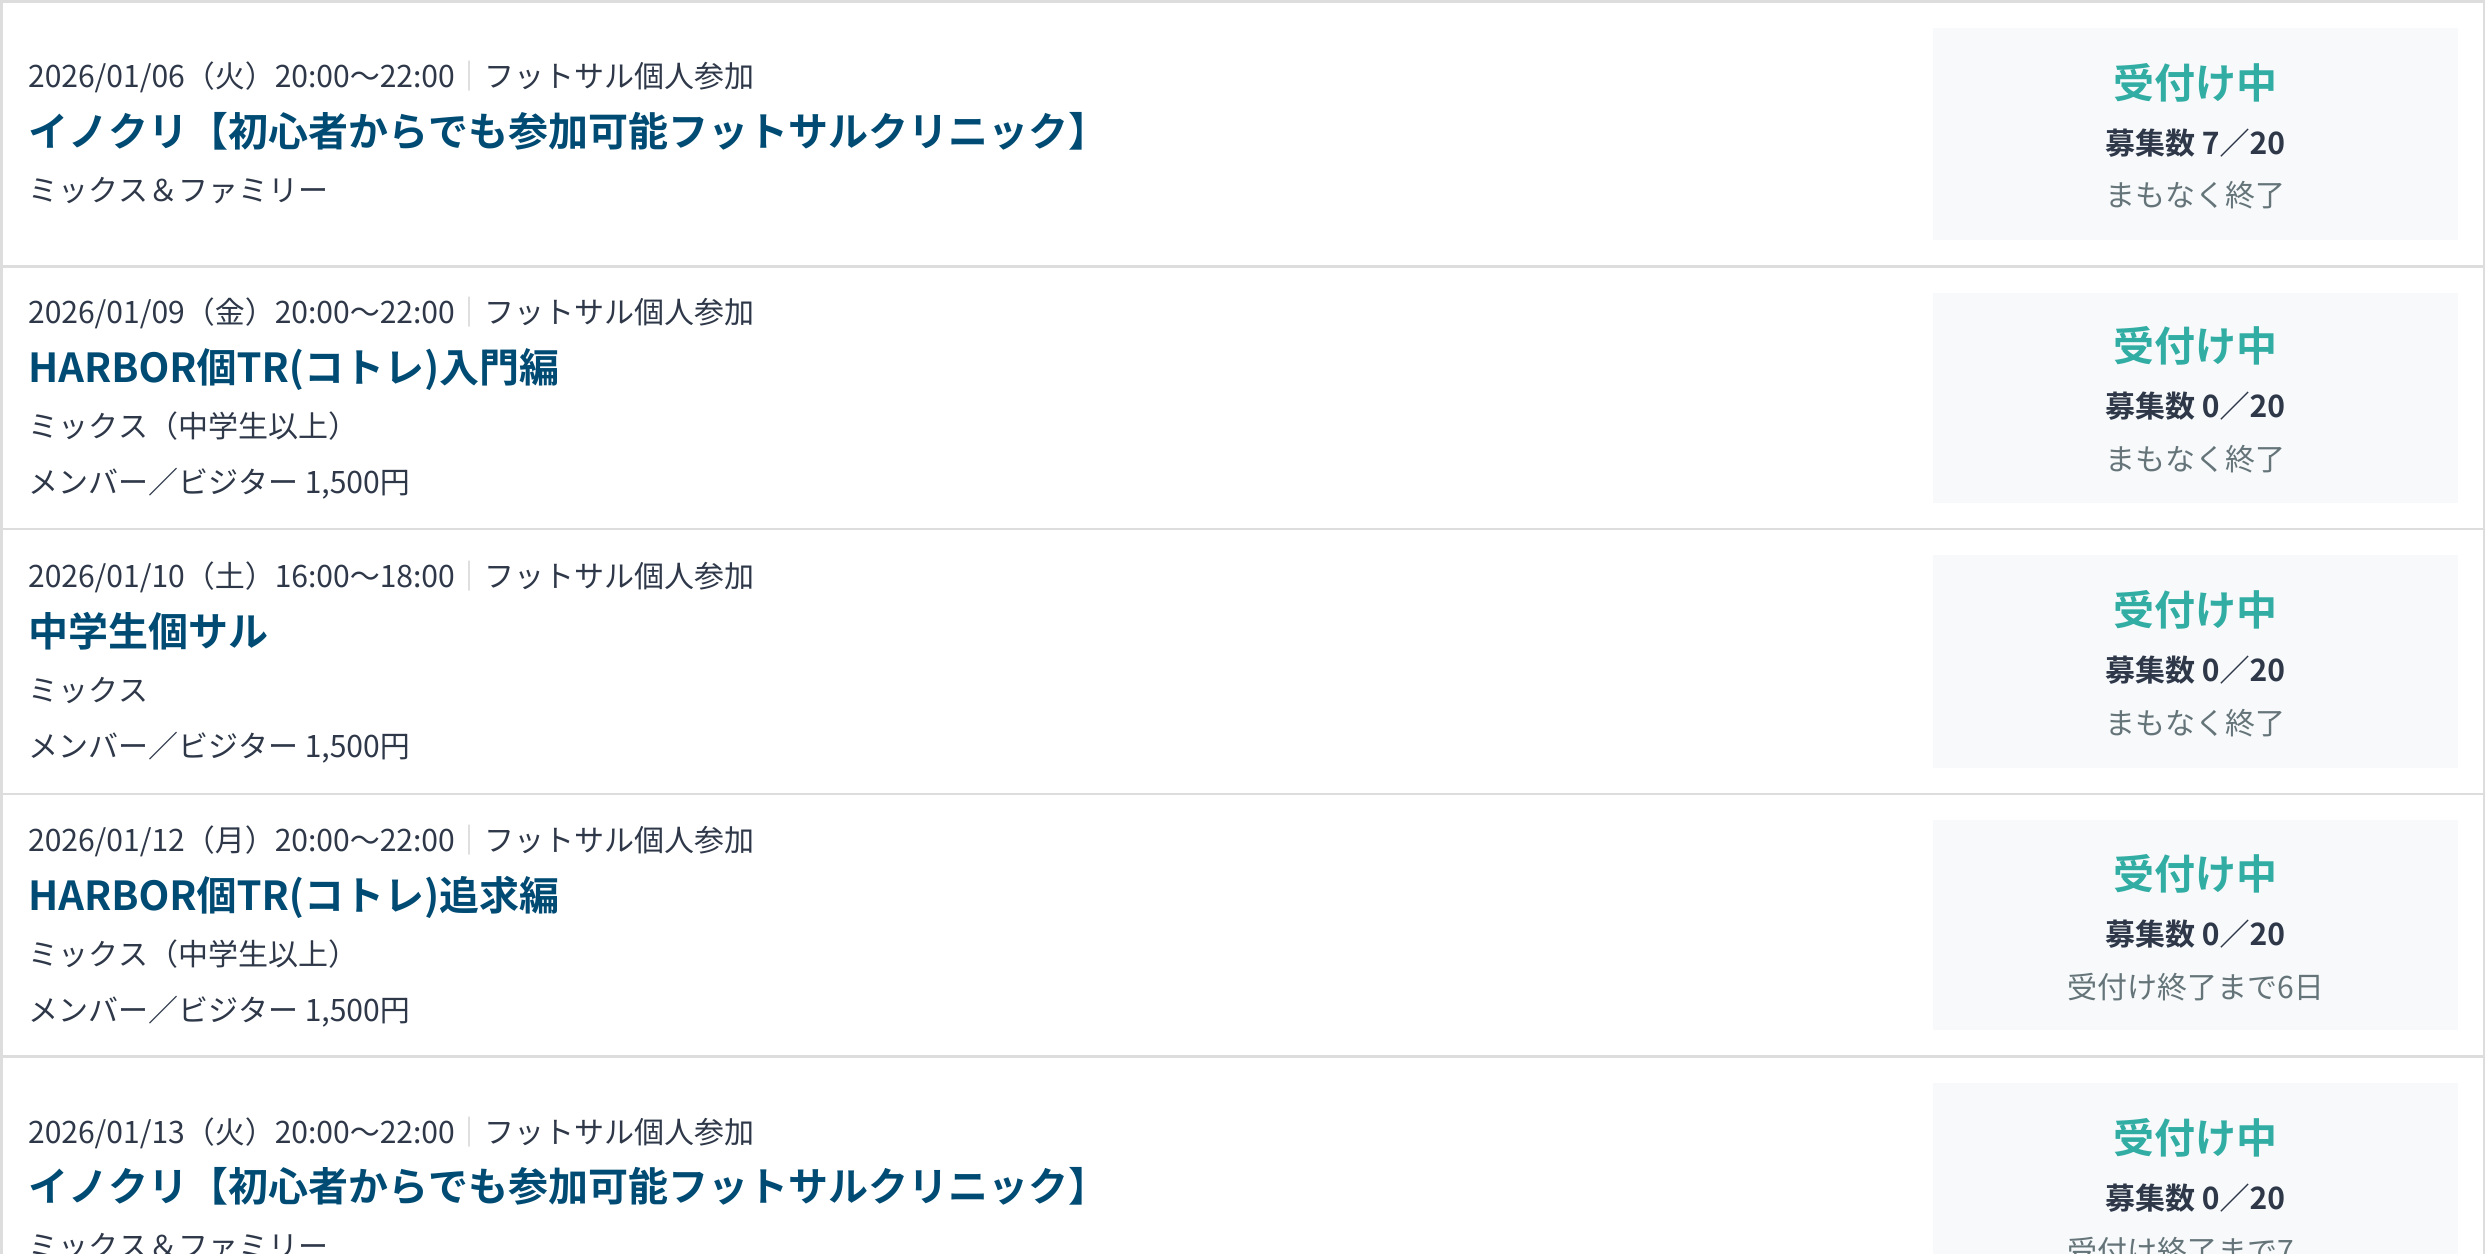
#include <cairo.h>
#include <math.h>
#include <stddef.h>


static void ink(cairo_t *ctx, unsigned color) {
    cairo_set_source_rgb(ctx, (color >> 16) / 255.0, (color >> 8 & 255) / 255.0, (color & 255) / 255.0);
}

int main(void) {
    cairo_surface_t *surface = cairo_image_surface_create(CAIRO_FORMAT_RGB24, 2485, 1254);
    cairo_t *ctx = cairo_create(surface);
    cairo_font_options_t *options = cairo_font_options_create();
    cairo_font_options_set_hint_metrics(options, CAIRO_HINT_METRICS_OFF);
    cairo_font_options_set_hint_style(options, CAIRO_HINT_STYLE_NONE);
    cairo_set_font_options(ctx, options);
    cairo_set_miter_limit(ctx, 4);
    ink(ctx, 0xFFFFFF);
    cairo_paint(ctx);
    cairo_rectangle(ctx, 1.5, 1.5, 2482, 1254);
    ink(ctx, 0xDDDDDD);
    cairo_set_line_width(ctx, 3);
    cairo_stroke(ctx);
    cairo_rectangle(ctx, 3, 265, 2480, 3);
    cairo_fill(ctx);
    cairo_select_font_face(ctx, "Noto Sans JP", CAIRO_FONT_SLANT_NORMAL, CAIRO_FONT_WEIGHT_NORMAL);
    cairo_set_font_size(ctx, 30);
    ink(ctx, 0x2E3849);
    cairo_move_to(ctx, 28, 87);
    cairo_show_text(ctx, "2026/01/06（火）20:00〜22:00");
    ink(ctx, 0xCCCCCC);
    cairo_move_to(ctx, 454, 87);
    cairo_show_text(ctx, "｜");
    ink(ctx, 0x2E3849);
    cairo_move_to(ctx, 484, 87);
    cairo_show_text(ctx, "フットサル個人参加");
    cairo_select_font_face(ctx, "Noto Sans JP", CAIRO_FONT_SLANT_NORMAL, CAIRO_FONT_WEIGHT_BOLD);
    cairo_set_font_size(ctx, 40);
    ink(ctx, 0x004B73);
    cairo_move_to(ctx, 28, 146);
    cairo_show_text(ctx, "イノクリ【初心者からでも参加可能フットサルクリニック】");
    cairo_select_font_face(ctx, "Noto Sans JP", CAIRO_FONT_SLANT_NORMAL, CAIRO_FONT_WEIGHT_NORMAL);
    cairo_set_font_size(ctx, 30);
    ink(ctx, 0x2E3849);
    cairo_move_to(ctx, 28, 201);
    cairo_show_text(ctx, "ミックス＆ファミリー");
    ink(ctx, 0xF7F9FB);
    cairo_rectangle(ctx, 1933, 28, 525, 212);
    cairo_fill(ctx);
    ink(ctx, 0xFFFFFF);
    cairo_rectangle(ctx, 2482, 3, 1, 262);
    cairo_fill(ctx);
    cairo_select_font_face(ctx, "Noto Sans JP", CAIRO_FONT_SLANT_NORMAL, CAIRO_FONT_WEIGHT_BOLD);
    cairo_set_font_size(ctx, 41);
    ink(ctx, 0x32ADA3);
    cairo_move_to(ctx, 2113, 98);
    cairo_show_text(ctx, "受付け中");
    cairo_set_font_size(ctx, 30);
    ink(ctx, 0x2E3849);
    cairo_move_to(ctx, 2105, 154);
    cairo_show_text(ctx, "募集数 7／20");
    cairo_select_font_face(ctx, "Noto Sans JP", CAIRO_FONT_SLANT_NORMAL, CAIRO_FONT_WEIGHT_NORMAL);
    ink(ctx, 0x647479);
    cairo_move_to(ctx, 2105, 206);
    cairo_show_text(ctx, "まもなく終了");
    ink(ctx, 0xDDDDDD);
    cairo_rectangle(ctx, 3, 528, 2480, 2);
    cairo_fill(ctx);
    ink(ctx, 0x2E3849);
    cairo_move_to(ctx, 28, 323);
    cairo_show_text(ctx, "2026/01/09（金）20:00〜22:00");
    ink(ctx, 0xCCCCCC);
    cairo_move_to(ctx, 454, 323);
    cairo_show_text(ctx, "｜");
    ink(ctx, 0x2E3849);
    cairo_move_to(ctx, 484, 323);
    cairo_show_text(ctx, "フットサル個人参加");
    cairo_select_font_face(ctx, "Noto Sans JP", CAIRO_FONT_SLANT_NORMAL, CAIRO_FONT_WEIGHT_BOLD);
    cairo_set_font_size(ctx, 40);
    ink(ctx, 0x004B73);
    cairo_move_to(ctx, 28, 382);
    cairo_show_text(ctx, "HARBOR個TR(コトレ)入門編");
    cairo_select_font_face(ctx, "Noto Sans JP", CAIRO_FONT_SLANT_NORMAL, CAIRO_FONT_WEIGHT_NORMAL);
    cairo_set_font_size(ctx, 30);
    ink(ctx, 0x2E3849);
    cairo_move_to(ctx, 28, 437);
    cairo_show_text(ctx, "ミックス（中学生以上）");
    cairo_move_to(ctx, 28, 493);
    cairo_show_text(ctx, "メンバー／ビジター 1,500円");
    ink(ctx, 0xF7F9FB);
    cairo_rectangle(ctx, 1933, 293, 525, 210);
    cairo_fill(ctx);
    ink(ctx, 0xFFFFFF);
    cairo_rectangle(ctx, 2482, 268, 1, 260);
    cairo_fill(ctx);
    cairo_select_font_face(ctx, "Noto Sans JP", CAIRO_FONT_SLANT_NORMAL, CAIRO_FONT_WEIGHT_BOLD);
    cairo_set_font_size(ctx, 41);
    ink(ctx, 0x32ADA3);
    cairo_move_to(ctx, 2113, 361);
    cairo_show_text(ctx, "受付け中");
    cairo_set_font_size(ctx, 30);
    ink(ctx, 0x2E3849);
    cairo_move_to(ctx, 2105, 417);
    cairo_show_text(ctx, "募集数 0／20");
    cairo_select_font_face(ctx, "Noto Sans JP", CAIRO_FONT_SLANT_NORMAL, CAIRO_FONT_WEIGHT_NORMAL);
    ink(ctx, 0x647479);
    cairo_move_to(ctx, 2105, 470);
    cairo_show_text(ctx, "まもなく終了");
    ink(ctx, 0xDDDDDD);
    cairo_rectangle(ctx, 3, 793, 2480, 2);
    cairo_fill(ctx);
    ink(ctx, 0x2E3849);
    cairo_move_to(ctx, 28, 587);
    cairo_show_text(ctx, "2026/01/10（土）16:00〜18:00");
    ink(ctx, 0xCCCCCC);
    cairo_move_to(ctx, 454, 587);
    cairo_show_text(ctx, "｜");
    ink(ctx, 0x2E3849);
    cairo_move_to(ctx, 484, 587);
    cairo_show_text(ctx, "フットサル個人参加");
    cairo_select_font_face(ctx, "Noto Sans JP", CAIRO_FONT_SLANT_NORMAL, CAIRO_FONT_WEIGHT_BOLD);
    cairo_set_font_size(ctx, 40);
    ink(ctx, 0x004B73);
    cairo_move_to(ctx, 28, 646);
    cairo_show_text(ctx, "中学生個サル");
    cairo_select_font_face(ctx, "Noto Sans JP", CAIRO_FONT_SLANT_NORMAL, CAIRO_FONT_WEIGHT_NORMAL);
    cairo_set_font_size(ctx, 30);
    ink(ctx, 0x2E3849);
    cairo_move_to(ctx, 28, 701);
    cairo_show_text(ctx, "ミックス");
    cairo_move_to(ctx, 28, 757);
    cairo_show_text(ctx, "メンバー／ビジター 1,500円");
    ink(ctx, 0xF7F9FB);
    cairo_rectangle(ctx, 1933, 555, 525, 213);
    cairo_fill(ctx);
    ink(ctx, 0xFFFFFF);
    cairo_rectangle(ctx, 2482, 530, 1, 263);
    cairo_fill(ctx);
    cairo_select_font_face(ctx, "Noto Sans JP", CAIRO_FONT_SLANT_NORMAL, CAIRO_FONT_WEIGHT_BOLD);
    cairo_set_font_size(ctx, 41);
    ink(ctx, 0x32ADA3);
    cairo_move_to(ctx, 2113, 625);
    cairo_show_text(ctx, "受付け中");
    cairo_set_font_size(ctx, 30);
    ink(ctx, 0x2E3849);
    cairo_move_to(ctx, 2105, 681);
    cairo_show_text(ctx, "募集数 0／20");
    cairo_select_font_face(ctx, "Noto Sans JP", CAIRO_FONT_SLANT_NORMAL, CAIRO_FONT_WEIGHT_NORMAL);
    ink(ctx, 0x647479);
    cairo_move_to(ctx, 2105, 734);
    cairo_show_text(ctx, "まもなく終了");
    ink(ctx, 0xDDDDDD);
    cairo_rectangle(ctx, 3, 1055, 2480, 3);
    cairo_fill(ctx);
    ink(ctx, 0x2E3849);
    cairo_move_to(ctx, 28, 851);
    cairo_show_text(ctx, "2026/01/12（月）20:00〜22:00");
    ink(ctx, 0xCCCCCC);
    cairo_move_to(ctx, 454, 851);
    cairo_show_text(ctx, "｜");
    ink(ctx, 0x2E3849);
    cairo_move_to(ctx, 484, 851);
    cairo_show_text(ctx, "フットサル個人参加");
    cairo_select_font_face(ctx, "Noto Sans JP", CAIRO_FONT_SLANT_NORMAL, CAIRO_FONT_WEIGHT_BOLD);
    cairo_set_font_size(ctx, 40);
    ink(ctx, 0x004B73);
    cairo_move_to(ctx, 28, 910);
    cairo_show_text(ctx, "HARBOR個TR(コトレ)追求編");
    cairo_select_font_face(ctx, "Noto Sans JP", CAIRO_FONT_SLANT_NORMAL, CAIRO_FONT_WEIGHT_NORMAL);
    cairo_set_font_size(ctx, 30);
    ink(ctx, 0x2E3849);
    cairo_move_to(ctx, 28, 965);
    cairo_show_text(ctx, "ミックス（中学生以上）");
    cairo_move_to(ctx, 28, 1021);
    cairo_show_text(ctx, "メンバー／ビジター 1,500円");
    ink(ctx, 0xF7F9FB);
    cairo_rectangle(ctx, 1933, 820, 525, 210);
    cairo_fill(ctx);
    ink(ctx, 0xFFFFFF);
    cairo_rectangle(ctx, 2482, 795, 1, 260);
    cairo_fill(ctx);
    cairo_select_font_face(ctx, "Noto Sans JP", CAIRO_FONT_SLANT_NORMAL, CAIRO_FONT_WEIGHT_BOLD);
    cairo_set_font_size(ctx, 41);
    ink(ctx, 0x32ADA3);
    cairo_move_to(ctx, 2113, 889);
    cairo_show_text(ctx, "受付け中");
    cairo_set_font_size(ctx, 30);
    ink(ctx, 0x2E3849);
    cairo_move_to(ctx, 2105, 945);
    cairo_show_text(ctx, "募集数 0／20");
    cairo_select_font_face(ctx, "Noto Sans JP", CAIRO_FONT_SLANT_NORMAL, CAIRO_FONT_WEIGHT_NORMAL);
    ink(ctx, 0x647479);
    cairo_move_to(ctx, 2067, 998);
    cairo_show_text(ctx, "受付け終了まで6日");
    ink(ctx, 0x2E3849);
    cairo_move_to(ctx, 28, 1143);
    cairo_show_text(ctx, "2026/01/13（火）20:00〜22:00");
    ink(ctx, 0xCCCCCC);
    cairo_move_to(ctx, 454, 1143);
    cairo_show_text(ctx, "｜");
    ink(ctx, 0x2E3849);
    cairo_move_to(ctx, 484, 1143);
    cairo_show_text(ctx, "フットサル個人参加");
    cairo_select_font_face(ctx, "Noto Sans JP", CAIRO_FONT_SLANT_NORMAL, CAIRO_FONT_WEIGHT_BOLD);
    cairo_set_font_size(ctx, 40);
    ink(ctx, 0x004B73);
    cairo_move_to(ctx, 28, 1201);
    cairo_show_text(ctx, "イノクリ【初心者からでも参加可能フットサルクリニック】");
    cairo_select_font_face(ctx, "Noto Sans JP", CAIRO_FONT_SLANT_NORMAL, CAIRO_FONT_WEIGHT_NORMAL);
    cairo_set_font_size(ctx, 30);
    ink(ctx, 0x2E3849);
    cairo_move_to(ctx, 28, 1257);
    cairo_show_text(ctx, "ミックス＆ファミリー");
    ink(ctx, 0xF7F9FB);
    cairo_rectangle(ctx, 1933, 1083, 525, 171);
    cairo_fill(ctx);
    ink(ctx, 0xFFFFFF);
    cairo_rectangle(ctx, 2482, 1058, 1, 196);
    cairo_fill(ctx);
    cairo_select_font_face(ctx, "Noto Sans JP", CAIRO_FONT_SLANT_NORMAL, CAIRO_FONT_WEIGHT_BOLD);
    cairo_set_font_size(ctx, 41);
    ink(ctx, 0x32ADA3);
    cairo_move_to(ctx, 2113, 1153);
    cairo_show_text(ctx, "受付け中");
    cairo_set_font_size(ctx, 30);
    ink(ctx, 0x2E3849);
    cairo_move_to(ctx, 2105, 1209);
    cairo_show_text(ctx, "募集数 0／20");
    cairo_select_font_face(ctx, "Noto Sans JP", CAIRO_FONT_SLANT_NORMAL, CAIRO_FONT_WEIGHT_NORMAL);
    ink(ctx, 0x647479);
    cairo_move_to(ctx, 2067, 1262);
    cairo_show_text(ctx, "受付け終了まで7");
    cairo_surface_write_to_png(surface, "image.png");
    cairo_font_options_destroy(options);
    cairo_destroy(ctx);
    cairo_surface_destroy(surface);
    return 0;
}
